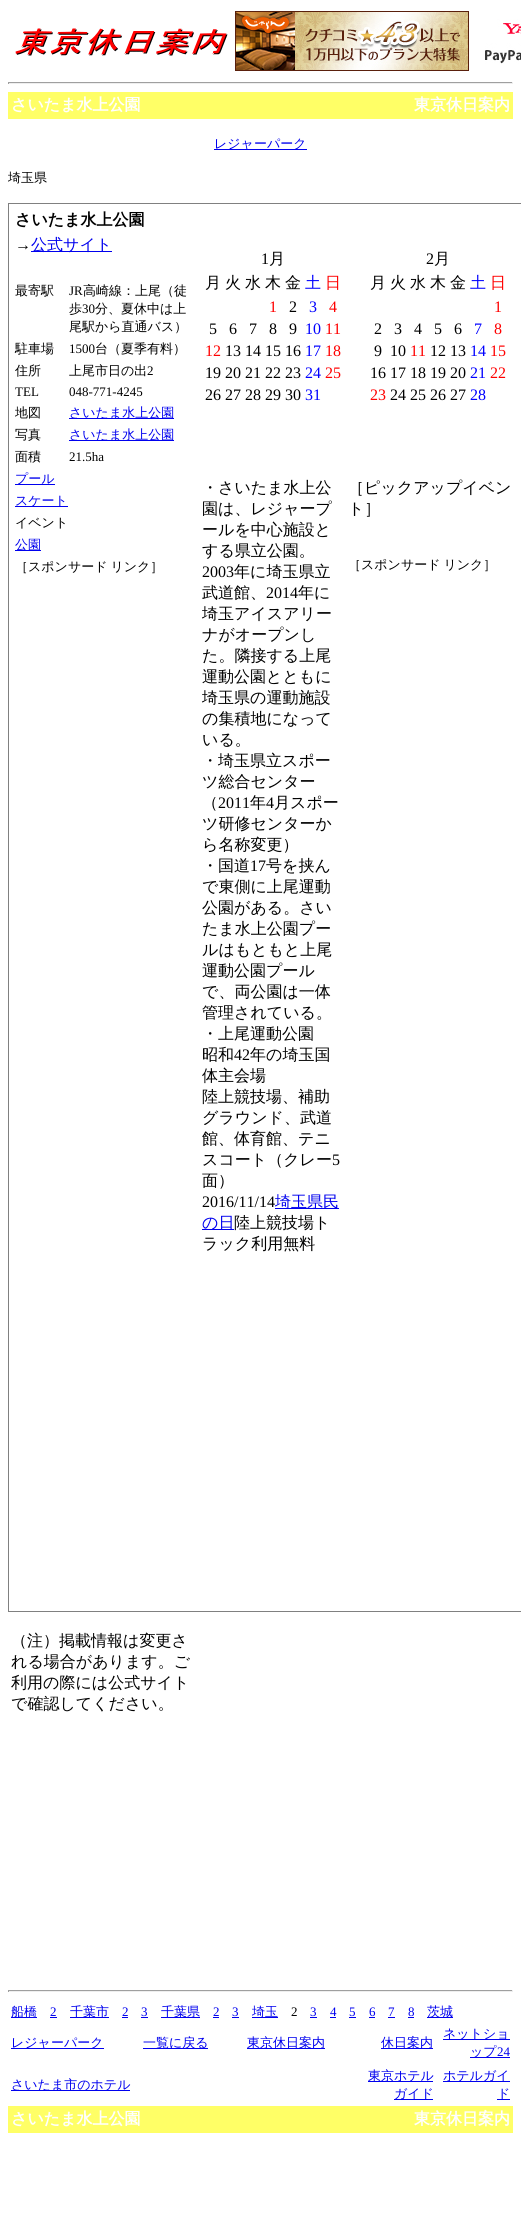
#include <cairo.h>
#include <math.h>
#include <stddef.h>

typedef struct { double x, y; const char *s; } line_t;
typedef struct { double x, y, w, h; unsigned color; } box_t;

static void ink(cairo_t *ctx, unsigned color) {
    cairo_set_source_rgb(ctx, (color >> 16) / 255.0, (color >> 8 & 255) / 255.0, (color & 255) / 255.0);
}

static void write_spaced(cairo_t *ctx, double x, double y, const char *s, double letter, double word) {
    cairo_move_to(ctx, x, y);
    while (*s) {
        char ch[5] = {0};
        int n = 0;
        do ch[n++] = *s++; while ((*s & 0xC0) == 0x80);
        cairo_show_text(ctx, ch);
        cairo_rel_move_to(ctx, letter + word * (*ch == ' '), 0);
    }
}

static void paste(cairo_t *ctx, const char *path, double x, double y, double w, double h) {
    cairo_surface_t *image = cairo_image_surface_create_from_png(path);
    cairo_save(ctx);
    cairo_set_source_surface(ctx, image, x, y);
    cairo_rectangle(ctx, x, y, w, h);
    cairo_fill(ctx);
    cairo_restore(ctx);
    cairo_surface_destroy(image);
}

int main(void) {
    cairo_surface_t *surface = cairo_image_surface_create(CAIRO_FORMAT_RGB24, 521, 2237);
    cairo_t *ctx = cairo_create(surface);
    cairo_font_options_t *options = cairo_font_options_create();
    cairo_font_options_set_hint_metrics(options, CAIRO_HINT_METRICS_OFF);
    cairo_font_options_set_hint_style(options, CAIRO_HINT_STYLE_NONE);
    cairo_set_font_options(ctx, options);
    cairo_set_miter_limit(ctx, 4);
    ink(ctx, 0xFFFFFF);
    cairo_paint(ctx);
    paste(ctx, "media/1.png", 15, 28, 213, 28);
    paste(ctx, "media/2.png", 235, 11, 234, 60);
    paste(ctx, "media/3.png", 485, 19, 36, 45);
    {
        static const box_t items[] = {
            {8, 82, 505, 1, 0x9F9F9F},
            {512, 82, 1, 2, 0xEEEEEE},
            {8, 83, 505, 1, 0xEEEEEE},
            {8, 82, 1, 2, 0x9F9F9F},
            {8, 92, 505, 27, 0xFFFF66},
        };
        for (size_t i = 0; i < sizeof items / sizeof *items; i++) {
            ink(ctx, items[i].color);
            cairo_rectangle(ctx, items[i].x, items[i].y, items[i].w, items[i].h);
            cairo_fill(ctx);
        }
    }
    cairo_select_font_face(ctx, "WenQuanYi Zen Hei", CAIRO_FONT_SLANT_NORMAL, CAIRO_FONT_WEIGHT_BOLD);
    cairo_set_font_size(ctx, 16);
    ink(ctx, 0xFFFFFF);
    cairo_move_to(ctx, 11, 110);
    cairo_show_text(ctx, "さいたま水上公園");
    cairo_move_to(ctx, 414, 110);
    cairo_show_text(ctx, "東京休日案内");
    ink(ctx, 0x0000EE);
    cairo_rectangle(ctx, 214, 149, 93, 1);
    cairo_fill(ctx);
    cairo_select_font_face(ctx, "WenQuanYi Zen Hei Medium", CAIRO_FONT_SLANT_NORMAL, CAIRO_FONT_WEIGHT_NORMAL);
    cairo_set_font_size(ctx, 13);
    cairo_move_to(ctx, 214, 148);
    cairo_show_text(ctx, "レジャーパーク");
    ink(ctx, 0x000000);
    cairo_move_to(ctx, 8, 182);
    cairo_show_text(ctx, "埼玉県");
    cairo_rectangle(ctx, 8.5, 203.5, 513, 1408);
    ink(ctx, 0x808080);
    cairo_set_line_width(ctx, 1);
    cairo_stroke(ctx);
    cairo_select_font_face(ctx, "WenQuanYi Zen Hei", CAIRO_FONT_SLANT_NORMAL, CAIRO_FONT_WEIGHT_BOLD);
    cairo_set_font_size(ctx, 16);
    ink(ctx, 0x000000);
    cairo_move_to(ctx, 15, 225);
    cairo_show_text(ctx, "さいたま水上公園");
    cairo_select_font_face(ctx, "Liberation Serif", CAIRO_FONT_SLANT_NORMAL, CAIRO_FONT_WEIGHT_NORMAL);
    cairo_move_to(ctx, 15, 250);
    cairo_show_text(ctx, "→");
    ink(ctx, 0x0000EE);
    cairo_rectangle(ctx, 31, 251, 81, 1);
    cairo_fill(ctx);
    cairo_select_font_face(ctx, "WenQuanYi Zen Hei Medium", CAIRO_FONT_SLANT_NORMAL, CAIRO_FONT_WEIGHT_NORMAL);
    cairo_move_to(ctx, 31, 250);
    cairo_show_text(ctx, "公式サイト");
    cairo_set_font_size(ctx, 13);
    ink(ctx, 0x000000);
    cairo_move_to(ctx, 15, 295);
    cairo_show_text(ctx, "最寄駅");
    cairo_select_font_face(ctx, "Liberation Serif", CAIRO_FONT_SLANT_NORMAL, CAIRO_FONT_WEIGHT_NORMAL);
    cairo_move_to(ctx, 69, 295);
    cairo_show_text(ctx, "JR");
    cairo_select_font_face(ctx, "WenQuanYi Zen Hei Medium", CAIRO_FONT_SLANT_NORMAL, CAIRO_FONT_WEIGHT_NORMAL);
    cairo_move_to(ctx, 83, 295);
    cairo_show_text(ctx, "高崎線：上尾（徒");
    cairo_move_to(ctx, 69, 313);
    cairo_show_text(ctx, "歩");
    cairo_select_font_face(ctx, "Liberation Serif", CAIRO_FONT_SLANT_NORMAL, CAIRO_FONT_WEIGHT_NORMAL);
    cairo_move_to(ctx, 82, 313);
    cairo_show_text(ctx, "30");
    cairo_select_font_face(ctx, "WenQuanYi Zen Hei Medium", CAIRO_FONT_SLANT_NORMAL, CAIRO_FONT_WEIGHT_NORMAL);
    {
        static const line_t items[] = {
            {95, 313, "分、夏休中は上"},
            {69, 331, "尾駅から直通バス）"},
            {15, 353, "駐車場"},
        };
        for (size_t i = 0; i < sizeof items / sizeof *items; i++) {
            cairo_move_to(ctx, items[i].x, items[i].y);
            cairo_show_text(ctx, items[i].s);
        }
    }
    cairo_select_font_face(ctx, "Liberation Serif", CAIRO_FONT_SLANT_NORMAL, CAIRO_FONT_WEIGHT_NORMAL);
    cairo_move_to(ctx, 69, 353);
    cairo_show_text(ctx, "1500");
    cairo_select_font_face(ctx, "WenQuanYi Zen Hei Medium", CAIRO_FONT_SLANT_NORMAL, CAIRO_FONT_WEIGHT_NORMAL);
    {
        static const line_t items[] = {
            {95, 353, "台（夏季有料）"},
            {15, 375, "住所"},
            {69, 375, "上尾市日の出"},
        };
        for (size_t i = 0; i < sizeof items / sizeof *items; i++) {
            cairo_move_to(ctx, items[i].x, items[i].y);
            cairo_show_text(ctx, items[i].s);
        }
    }
    cairo_select_font_face(ctx, "Liberation Serif", CAIRO_FONT_SLANT_NORMAL, CAIRO_FONT_WEIGHT_NORMAL);
    {
        static const line_t items[] = {
            {147, 375, "2"},
            {15, 396, "TEL"},
            {69, 396, "048-771-4245"},
        };
        for (size_t i = 0; i < sizeof items / sizeof *items; i++) {
            cairo_move_to(ctx, items[i].x, items[i].y);
            cairo_show_text(ctx, items[i].s);
        }
    }
    cairo_select_font_face(ctx, "WenQuanYi Zen Hei Medium", CAIRO_FONT_SLANT_NORMAL, CAIRO_FONT_WEIGHT_NORMAL);
    cairo_move_to(ctx, 15, 417);
    cairo_show_text(ctx, "地図");
    ink(ctx, 0x0000EE);
    cairo_rectangle(ctx, 69, 418, 105, 1);
    cairo_fill(ctx);
    cairo_move_to(ctx, 69, 417);
    cairo_show_text(ctx, "さいたま水上公園");
    ink(ctx, 0x000000);
    cairo_move_to(ctx, 15, 439);
    cairo_show_text(ctx, "写真");
    ink(ctx, 0x0000EE);
    cairo_rectangle(ctx, 69, 440, 105, 1);
    cairo_fill(ctx);
    cairo_move_to(ctx, 69, 439);
    cairo_show_text(ctx, "さいたま水上公園");
    ink(ctx, 0x000000);
    cairo_move_to(ctx, 15, 461);
    cairo_show_text(ctx, "面積");
    cairo_select_font_face(ctx, "Liberation Serif", CAIRO_FONT_SLANT_NORMAL, CAIRO_FONT_WEIGHT_NORMAL);
    cairo_move_to(ctx, 69, 461);
    cairo_show_text(ctx, "21.5ha");
    ink(ctx, 0x0000EE);
    cairo_rectangle(ctx, 15, 484, 40, 1);
    cairo_fill(ctx);
    cairo_select_font_face(ctx, "WenQuanYi Zen Hei Medium", CAIRO_FONT_SLANT_NORMAL, CAIRO_FONT_WEIGHT_NORMAL);
    cairo_move_to(ctx, 15, 483);
    cairo_show_text(ctx, "プール");
    cairo_rectangle(ctx, 15, 506, 53, 1);
    cairo_fill(ctx);
    cairo_move_to(ctx, 15, 505);
    cairo_show_text(ctx, "スケート");
    ink(ctx, 0x000000);
    cairo_move_to(ctx, 15, 527);
    cairo_show_text(ctx, "イベント");
    ink(ctx, 0x0000EE);
    cairo_rectangle(ctx, 15, 550, 26, 1);
    cairo_fill(ctx);
    cairo_move_to(ctx, 15, 549);
    cairo_show_text(ctx, "公園");
    ink(ctx, 0x000000);
    write_spaced(ctx, 15, 571, "［スポンサード リンク］", 0, -1);
    cairo_select_font_face(ctx, "Liberation Serif", CAIRO_FONT_SLANT_NORMAL, CAIRO_FONT_WEIGHT_NORMAL);
    cairo_set_font_size(ctx, 16);
    cairo_move_to(ctx, 261, 264);
    cairo_show_text(ctx, "1");
    cairo_select_font_face(ctx, "WenQuanYi Zen Hei Medium", CAIRO_FONT_SLANT_NORMAL, CAIRO_FONT_WEIGHT_NORMAL);
    {
        static const line_t items[] = {
            {269, 264, "月"},
            {205, 288, "月"},
            {225, 288, "火"},
            {245, 288, "水"},
            {265, 288, "木"},
            {285, 288, "金"},
        };
        for (size_t i = 0; i < sizeof items / sizeof *items; i++) {
            cairo_move_to(ctx, items[i].x, items[i].y);
            cairo_show_text(ctx, items[i].s);
        }
    }
    ink(ctx, 0x0000FF);
    cairo_move_to(ctx, 305, 288);
    cairo_show_text(ctx, "土");
    ink(ctx, 0xFF0000);
    cairo_move_to(ctx, 325, 288);
    cairo_show_text(ctx, "日");
    cairo_select_font_face(ctx, "Liberation Serif", CAIRO_FONT_SLANT_NORMAL, CAIRO_FONT_WEIGHT_NORMAL);
    cairo_move_to(ctx, 269, 312);
    cairo_show_text(ctx, "1");
    ink(ctx, 0x000000);
    cairo_move_to(ctx, 289, 312);
    cairo_show_text(ctx, "2");
    ink(ctx, 0x0000FF);
    cairo_move_to(ctx, 309, 312);
    cairo_show_text(ctx, "3");
    ink(ctx, 0xFF0000);
    cairo_move_to(ctx, 329, 312);
    cairo_show_text(ctx, "4");
    ink(ctx, 0x000000);
    {
        static const line_t items[] = {
            {209, 334, "5"},
            {229, 334, "6"},
            {249, 334, "7"},
            {269, 334, "8"},
            {289, 334, "9"},
        };
        for (size_t i = 0; i < sizeof items / sizeof *items; i++) {
            cairo_move_to(ctx, items[i].x, items[i].y);
            cairo_show_text(ctx, items[i].s);
        }
    }
    ink(ctx, 0x0000FF);
    cairo_move_to(ctx, 305, 334);
    cairo_show_text(ctx, "10");
    ink(ctx, 0xFF0000);
    cairo_move_to(ctx, 325, 334);
    cairo_show_text(ctx, "11");
    cairo_move_to(ctx, 205, 356);
    cairo_show_text(ctx, "12");
    ink(ctx, 0x000000);
    cairo_move_to(ctx, 225, 356);
    cairo_show_text(ctx, "13 14 15 16");
    ink(ctx, 0x0000FF);
    cairo_move_to(ctx, 305, 356);
    cairo_show_text(ctx, "17");
    ink(ctx, 0xFF0000);
    cairo_move_to(ctx, 325, 356);
    cairo_show_text(ctx, "18");
    ink(ctx, 0x000000);
    cairo_move_to(ctx, 205, 378);
    cairo_show_text(ctx, "19 20 21 22 23");
    ink(ctx, 0x0000FF);
    cairo_move_to(ctx, 305, 378);
    cairo_show_text(ctx, "24");
    ink(ctx, 0xFF0000);
    cairo_move_to(ctx, 325, 378);
    cairo_show_text(ctx, "25");
    ink(ctx, 0x000000);
    cairo_move_to(ctx, 205, 400);
    cairo_show_text(ctx, "26 27 28 29 30");
    ink(ctx, 0x0000FF);
    cairo_move_to(ctx, 305, 400);
    cairo_show_text(ctx, "31");
    ink(ctx, 0x000000);
    cairo_move_to(ctx, 426, 264);
    cairo_show_text(ctx, "2");
    cairo_select_font_face(ctx, "WenQuanYi Zen Hei Medium", CAIRO_FONT_SLANT_NORMAL, CAIRO_FONT_WEIGHT_NORMAL);
    {
        static const line_t items[] = {
            {434, 264, "月"},
            {370, 288, "月"},
            {390, 288, "火"},
            {410, 288, "水"},
            {430, 288, "木"},
            {450, 288, "金"},
        };
        for (size_t i = 0; i < sizeof items / sizeof *items; i++) {
            cairo_move_to(ctx, items[i].x, items[i].y);
            cairo_show_text(ctx, items[i].s);
        }
    }
    ink(ctx, 0x0000FF);
    cairo_move_to(ctx, 470, 288);
    cairo_show_text(ctx, "土");
    ink(ctx, 0xFF0000);
    cairo_move_to(ctx, 490, 288);
    cairo_show_text(ctx, "日");
    cairo_select_font_face(ctx, "Liberation Serif", CAIRO_FONT_SLANT_NORMAL, CAIRO_FONT_WEIGHT_NORMAL);
    cairo_move_to(ctx, 494, 312);
    cairo_show_text(ctx, "1");
    ink(ctx, 0x000000);
    {
        static const line_t items[] = {
            {374, 334, "2"},
            {394, 334, "3"},
            {414, 334, "4"},
            {434, 334, "5"},
            {454, 334, "6"},
        };
        for (size_t i = 0; i < sizeof items / sizeof *items; i++) {
            cairo_move_to(ctx, items[i].x, items[i].y);
            cairo_show_text(ctx, items[i].s);
        }
    }
    ink(ctx, 0x0000FF);
    cairo_move_to(ctx, 474, 334);
    cairo_show_text(ctx, "7");
    ink(ctx, 0xFF0000);
    cairo_move_to(ctx, 494, 334);
    cairo_show_text(ctx, "8");
    ink(ctx, 0x000000);
    cairo_move_to(ctx, 374, 356);
    cairo_show_text(ctx, "9");
    cairo_move_to(ctx, 390, 356);
    cairo_show_text(ctx, "10");
    ink(ctx, 0xFF0000);
    cairo_move_to(ctx, 410, 356);
    cairo_show_text(ctx, "11");
    ink(ctx, 0x000000);
    cairo_move_to(ctx, 430, 356);
    cairo_show_text(ctx, "12 13");
    ink(ctx, 0x0000FF);
    cairo_move_to(ctx, 470, 356);
    cairo_show_text(ctx, "14");
    ink(ctx, 0xFF0000);
    cairo_move_to(ctx, 490, 356);
    cairo_show_text(ctx, "15");
    ink(ctx, 0x000000);
    cairo_move_to(ctx, 370, 378);
    cairo_show_text(ctx, "16 17 18 19 20");
    ink(ctx, 0x0000FF);
    cairo_move_to(ctx, 470, 378);
    cairo_show_text(ctx, "21");
    ink(ctx, 0xFF0000);
    cairo_move_to(ctx, 490, 378);
    cairo_show_text(ctx, "22");
    cairo_move_to(ctx, 370, 400);
    cairo_show_text(ctx, "23");
    ink(ctx, 0x000000);
    cairo_move_to(ctx, 390, 400);
    cairo_show_text(ctx, "24 25 26 27");
    ink(ctx, 0x0000FF);
    cairo_move_to(ctx, 470, 400);
    cairo_show_text(ctx, "28");
    cairo_select_font_face(ctx, "WenQuanYi Zen Hei Medium", CAIRO_FONT_SLANT_NORMAL, CAIRO_FONT_WEIGHT_NORMAL);
    ink(ctx, 0x000000);
    {
        static const line_t items[] = {
            {202, 493, "・さいたま水上公"},
            {202, 514, "園は、レジャープ"},
            {202, 535, "ールを中心施設と"},
            {202, 556, "する県立公園。"},
        };
        for (size_t i = 0; i < sizeof items / sizeof *items; i++) {
            cairo_move_to(ctx, items[i].x, items[i].y);
            cairo_show_text(ctx, items[i].s);
        }
    }
    cairo_select_font_face(ctx, "Liberation Serif", CAIRO_FONT_SLANT_NORMAL, CAIRO_FONT_WEIGHT_NORMAL);
    cairo_move_to(ctx, 202, 577);
    cairo_show_text(ctx, "2003");
    cairo_select_font_face(ctx, "WenQuanYi Zen Hei Medium", CAIRO_FONT_SLANT_NORMAL, CAIRO_FONT_WEIGHT_NORMAL);
    cairo_move_to(ctx, 234, 577);
    cairo_show_text(ctx, "年に埼玉県立");
    cairo_move_to(ctx, 202, 598);
    cairo_show_text(ctx, "武道館、");
    cairo_select_font_face(ctx, "Liberation Serif", CAIRO_FONT_SLANT_NORMAL, CAIRO_FONT_WEIGHT_NORMAL);
    cairo_move_to(ctx, 266, 598);
    cairo_show_text(ctx, "2014");
    cairo_select_font_face(ctx, "WenQuanYi Zen Hei Medium", CAIRO_FONT_SLANT_NORMAL, CAIRO_FONT_WEIGHT_NORMAL);
    {
        static const line_t items[] = {
            {298, 598, "年に"},
            {202, 619, "埼玉アイスアリー"},
            {202, 640, "ナがオープンし"},
            {202, 661, "た。隣接する上尾"},
            {202, 682, "運動公園とともに"},
            {202, 703, "埼玉県の運動施設"},
            {202, 724, "の集積地になって"},
            {202, 745, "いる。"},
            {202, 766, "・埼玉県立スポー"},
            {202, 787, "ツ総合センター"},
            {202, 808, "（"},
        };
        for (size_t i = 0; i < sizeof items / sizeof *items; i++) {
            cairo_move_to(ctx, items[i].x, items[i].y);
            cairo_show_text(ctx, items[i].s);
        }
    }
    cairo_select_font_face(ctx, "Liberation Serif", CAIRO_FONT_SLANT_NORMAL, CAIRO_FONT_WEIGHT_NORMAL);
    cairo_move_to(ctx, 218, 808);
    cairo_show_text(ctx, "2011");
    cairo_select_font_face(ctx, "WenQuanYi Zen Hei Medium", CAIRO_FONT_SLANT_NORMAL, CAIRO_FONT_WEIGHT_NORMAL);
    cairo_move_to(ctx, 250, 808);
    cairo_show_text(ctx, "年");
    cairo_select_font_face(ctx, "Liberation Serif", CAIRO_FONT_SLANT_NORMAL, CAIRO_FONT_WEIGHT_NORMAL);
    cairo_move_to(ctx, 266, 808);
    cairo_show_text(ctx, "4");
    cairo_select_font_face(ctx, "WenQuanYi Zen Hei Medium", CAIRO_FONT_SLANT_NORMAL, CAIRO_FONT_WEIGHT_NORMAL);
    {
        static const line_t items[] = {
            {274, 808, "月スポー"},
            {202, 829, "ツ研修センターか"},
            {202, 850, "ら名称変更）"},
            {202, 871, "・国道"},
        };
        for (size_t i = 0; i < sizeof items / sizeof *items; i++) {
            cairo_move_to(ctx, items[i].x, items[i].y);
            cairo_show_text(ctx, items[i].s);
        }
    }
    cairo_select_font_face(ctx, "Liberation Serif", CAIRO_FONT_SLANT_NORMAL, CAIRO_FONT_WEIGHT_NORMAL);
    cairo_move_to(ctx, 250, 871);
    cairo_show_text(ctx, "17");
    cairo_select_font_face(ctx, "WenQuanYi Zen Hei Medium", CAIRO_FONT_SLANT_NORMAL, CAIRO_FONT_WEIGHT_NORMAL);
    {
        static const line_t items[] = {
            {266, 871, "号を挟ん"},
            {202, 892, "で東側に上尾運動"},
            {202, 913, "公園がある。さい"},
            {202, 934, "たま水上公園プー"},
            {202, 955, "ルはもともと上尾"},
            {202, 976, "運動公園プール"},
            {202, 997, "で、両公園は一体"},
            {202, 1018, "管理されている。"},
            {202, 1039, "・上尾運動公園"},
            {202, 1060, "昭和"},
        };
        for (size_t i = 0; i < sizeof items / sizeof *items; i++) {
            cairo_move_to(ctx, items[i].x, items[i].y);
            cairo_show_text(ctx, items[i].s);
        }
    }
    cairo_select_font_face(ctx, "Liberation Serif", CAIRO_FONT_SLANT_NORMAL, CAIRO_FONT_WEIGHT_NORMAL);
    cairo_move_to(ctx, 234, 1060);
    cairo_show_text(ctx, "42");
    cairo_select_font_face(ctx, "WenQuanYi Zen Hei Medium", CAIRO_FONT_SLANT_NORMAL, CAIRO_FONT_WEIGHT_NORMAL);
    {
        static const line_t items[] = {
            {250, 1060, "年の埼玉国"},
            {202, 1081, "体主会場"},
            {202, 1102, "陸上競技場、補助"},
            {202, 1123, "グラウンド、武道"},
            {202, 1144, "館、体育館、テニ"},
            {202, 1165, "スコート（クレー"},
        };
        for (size_t i = 0; i < sizeof items / sizeof *items; i++) {
            cairo_move_to(ctx, items[i].x, items[i].y);
            cairo_show_text(ctx, items[i].s);
        }
    }
    cairo_select_font_face(ctx, "Liberation Serif", CAIRO_FONT_SLANT_NORMAL, CAIRO_FONT_WEIGHT_NORMAL);
    cairo_move_to(ctx, 332, 1165);
    cairo_show_text(ctx, "5");
    cairo_select_font_face(ctx, "WenQuanYi Zen Hei Medium", CAIRO_FONT_SLANT_NORMAL, CAIRO_FONT_WEIGHT_NORMAL);
    cairo_move_to(ctx, 202, 1186);
    cairo_show_text(ctx, "面）");
    cairo_select_font_face(ctx, "Liberation Serif", CAIRO_FONT_SLANT_NORMAL, CAIRO_FONT_WEIGHT_NORMAL);
    cairo_move_to(ctx, 202, 1207);
    cairo_show_text(ctx, "2016/11/14");
    ink(ctx, 0x0000EE);
    cairo_rectangle(ctx, 275, 1208, 64, 1);
    cairo_fill(ctx);
    cairo_select_font_face(ctx, "WenQuanYi Zen Hei Medium", CAIRO_FONT_SLANT_NORMAL, CAIRO_FONT_WEIGHT_NORMAL);
    cairo_move_to(ctx, 275, 1207);
    cairo_show_text(ctx, "埼玉県民");
    cairo_rectangle(ctx, 202, 1229, 32, 1);
    cairo_fill(ctx);
    cairo_move_to(ctx, 202, 1228);
    cairo_show_text(ctx, "の日");
    ink(ctx, 0x000000);
    {
        static const line_t items[] = {
            {234, 1228, "陸上競技場ト"},
            {202, 1249, "ラック利用無料"},
            {348, 493, "［ピックアップイベン"},
            {348, 514, "ト］"},
        };
        for (size_t i = 0; i < sizeof items / sizeof *items; i++) {
            cairo_move_to(ctx, items[i].x, items[i].y);
            cairo_show_text(ctx, items[i].s);
        }
    }
    cairo_set_font_size(ctx, 13);
    write_spaced(ctx, 348, 569, "［スポンサード リンク］", 0, -1);
    cairo_set_font_size(ctx, 16);
    {
        static const line_t items[] = {
            {11, 1646, "（注）掲載情報は変更さ"},
            {11, 1667, "れる場合があります。ご"},
            {11, 1688, "利用の際には公式サイト"},
            {11, 1709, "で確認してください。"},
        };
        for (size_t i = 0; i < sizeof items / sizeof *items; i++) {
            cairo_move_to(ctx, items[i].x, items[i].y);
            cairo_show_text(ctx, items[i].s);
        }
    }
    {
        static const box_t items[] = {
            {8, 1990, 505, 1, 0x9F9F9F},
            {512, 1990, 1, 2, 0xEEEEEE},
            {8, 1991, 505, 1, 0xEEEEEE},
            {8, 1990, 1, 2, 0x9F9F9F},
            {11, 2017, 26, 1, 0x0000EE},
        };
        for (size_t i = 0; i < sizeof items / sizeof *items; i++) {
            ink(ctx, items[i].color);
            cairo_rectangle(ctx, items[i].x, items[i].y, items[i].w, items[i].h);
            cairo_fill(ctx);
        }
    }
    cairo_set_font_size(ctx, 13);
    cairo_move_to(ctx, 11, 2016);
    cairo_show_text(ctx, "船橋");
    cairo_select_font_face(ctx, "Liberation Serif", CAIRO_FONT_SLANT_NORMAL, CAIRO_FONT_WEIGHT_NORMAL);
    cairo_move_to(ctx, 50, 2016);
    cairo_show_text(ctx, "2");
    cairo_rectangle(ctx, 50, 2017, 7, 1);
    cairo_fill(ctx);
    cairo_rectangle(ctx, 70, 2017, 39, 1);
    cairo_fill(ctx);
    cairo_select_font_face(ctx, "WenQuanYi Zen Hei Medium", CAIRO_FONT_SLANT_NORMAL, CAIRO_FONT_WEIGHT_NORMAL);
    cairo_move_to(ctx, 70, 2016);
    cairo_show_text(ctx, "千葉市");
    cairo_select_font_face(ctx, "Liberation Serif", CAIRO_FONT_SLANT_NORMAL, CAIRO_FONT_WEIGHT_NORMAL);
    cairo_move_to(ctx, 122, 2016);
    cairo_show_text(ctx, "2");
    cairo_rectangle(ctx, 122, 2017, 6, 1);
    cairo_fill(ctx);
    cairo_move_to(ctx, 141, 2016);
    cairo_show_text(ctx, "3");
    cairo_rectangle(ctx, 141, 2017, 7, 1);
    cairo_fill(ctx);
    cairo_rectangle(ctx, 161, 2017, 39, 1);
    cairo_fill(ctx);
    cairo_select_font_face(ctx, "WenQuanYi Zen Hei Medium", CAIRO_FONT_SLANT_NORMAL, CAIRO_FONT_WEIGHT_NORMAL);
    cairo_move_to(ctx, 161, 2016);
    cairo_show_text(ctx, "千葉県");
    cairo_select_font_face(ctx, "Liberation Serif", CAIRO_FONT_SLANT_NORMAL, CAIRO_FONT_WEIGHT_NORMAL);
    cairo_move_to(ctx, 213, 2016);
    cairo_show_text(ctx, "2");
    cairo_rectangle(ctx, 213, 2017, 6, 1);
    cairo_fill(ctx);
    cairo_move_to(ctx, 232, 2016);
    cairo_show_text(ctx, "3");
    cairo_rectangle(ctx, 232, 2017, 7, 1);
    cairo_fill(ctx);
    cairo_rectangle(ctx, 252, 2017, 26, 1);
    cairo_fill(ctx);
    cairo_select_font_face(ctx, "WenQuanYi Zen Hei Medium", CAIRO_FONT_SLANT_NORMAL, CAIRO_FONT_WEIGHT_NORMAL);
    cairo_move_to(ctx, 252, 2016);
    cairo_show_text(ctx, "埼玉");
    cairo_select_font_face(ctx, "Liberation Serif", CAIRO_FONT_SLANT_NORMAL, CAIRO_FONT_WEIGHT_NORMAL);
    ink(ctx, 0x000000);
    cairo_move_to(ctx, 291, 2016);
    cairo_show_text(ctx, "2");
    ink(ctx, 0x0000EE);
    cairo_move_to(ctx, 310, 2016);
    cairo_show_text(ctx, "3");
    cairo_rectangle(ctx, 310, 2017, 7, 1);
    cairo_fill(ctx);
    cairo_move_to(ctx, 330, 2016);
    cairo_show_text(ctx, "4");
    cairo_rectangle(ctx, 330, 2017, 6, 1);
    cairo_fill(ctx);
    cairo_move_to(ctx, 349, 2016);
    cairo_show_text(ctx, "5");
    cairo_rectangle(ctx, 349, 2017, 7, 1);
    cairo_fill(ctx);
    cairo_move_to(ctx, 369, 2016);
    cairo_show_text(ctx, "6");
    cairo_rectangle(ctx, 369, 2017, 6, 1);
    cairo_fill(ctx);
    cairo_move_to(ctx, 388, 2016);
    cairo_show_text(ctx, "7");
    cairo_rectangle(ctx, 388, 2017, 7, 1);
    cairo_fill(ctx);
    cairo_move_to(ctx, 408, 2016);
    cairo_show_text(ctx, "8");
    cairo_rectangle(ctx, 408, 2017, 6, 1);
    cairo_fill(ctx);
    cairo_rectangle(ctx, 427, 2017, 26, 1);
    cairo_fill(ctx);
    cairo_select_font_face(ctx, "WenQuanYi Zen Hei Medium", CAIRO_FONT_SLANT_NORMAL, CAIRO_FONT_WEIGHT_NORMAL);
    cairo_move_to(ctx, 427, 2016);
    cairo_show_text(ctx, "茨城");
    cairo_rectangle(ctx, 11, 2048, 93, 1);
    cairo_fill(ctx);
    cairo_move_to(ctx, 11, 2047);
    cairo_show_text(ctx, "レジャーパーク");
    cairo_rectangle(ctx, 143, 2048, 65, 1);
    cairo_fill(ctx);
    cairo_move_to(ctx, 143, 2047);
    cairo_show_text(ctx, "一覧に戻る");
    cairo_rectangle(ctx, 247, 2048, 78, 1);
    cairo_fill(ctx);
    cairo_move_to(ctx, 247, 2047);
    cairo_show_text(ctx, "東京休日案内");
    cairo_rectangle(ctx, 381, 2048, 52, 1);
    cairo_fill(ctx);
    cairo_move_to(ctx, 381, 2047);
    cairo_show_text(ctx, "休日案内");
    cairo_rectangle(ctx, 443, 2039, 67, 1);
    cairo_fill(ctx);
    cairo_move_to(ctx, 443, 2038);
    cairo_show_text(ctx, "ネットショ");
    cairo_rectangle(ctx, 470, 2057, 40, 1);
    cairo_fill(ctx);
    cairo_move_to(ctx, 470, 2056);
    cairo_show_text(ctx, "ップ");
    cairo_select_font_face(ctx, "Liberation Serif", CAIRO_FONT_SLANT_NORMAL, CAIRO_FONT_WEIGHT_NORMAL);
    cairo_move_to(ctx, 497, 2056);
    cairo_show_text(ctx, "24");
    cairo_rectangle(ctx, 11, 2090, 119, 1);
    cairo_fill(ctx);
    cairo_select_font_face(ctx, "WenQuanYi Zen Hei Medium", CAIRO_FONT_SLANT_NORMAL, CAIRO_FONT_WEIGHT_NORMAL);
    cairo_move_to(ctx, 11, 2089);
    cairo_show_text(ctx, "さいたま市のホテル");
    cairo_rectangle(ctx, 368, 2081, 65, 1);
    cairo_fill(ctx);
    cairo_move_to(ctx, 368, 2080);
    cairo_show_text(ctx, "東京ホテル");
    cairo_rectangle(ctx, 394, 2099, 39, 1);
    cairo_fill(ctx);
    cairo_move_to(ctx, 394, 2098);
    cairo_show_text(ctx, "ガイド");
    cairo_rectangle(ctx, 443, 2081, 67, 1);
    cairo_fill(ctx);
    cairo_move_to(ctx, 443, 2080);
    cairo_show_text(ctx, "ホテルガイ");
    cairo_rectangle(ctx, 497, 2099, 13, 1);
    cairo_fill(ctx);
    cairo_move_to(ctx, 497, 2098);
    cairo_show_text(ctx, "ド");
    ink(ctx, 0xFFFF66);
    cairo_rectangle(ctx, 8, 2106, 505, 27);
    cairo_fill(ctx);
    cairo_select_font_face(ctx, "WenQuanYi Zen Hei", CAIRO_FONT_SLANT_NORMAL, CAIRO_FONT_WEIGHT_BOLD);
    cairo_set_font_size(ctx, 16);
    ink(ctx, 0xFFFFFF);
    cairo_move_to(ctx, 11, 2124);
    cairo_show_text(ctx, "さいたま水上公園");
    cairo_move_to(ctx, 414, 2124);
    cairo_show_text(ctx, "東京休日案内");
    cairo_surface_write_to_png(surface, "image.png");
    cairo_font_options_destroy(options);
    cairo_destroy(ctx);
    cairo_surface_destroy(surface);
    return 0;
}
